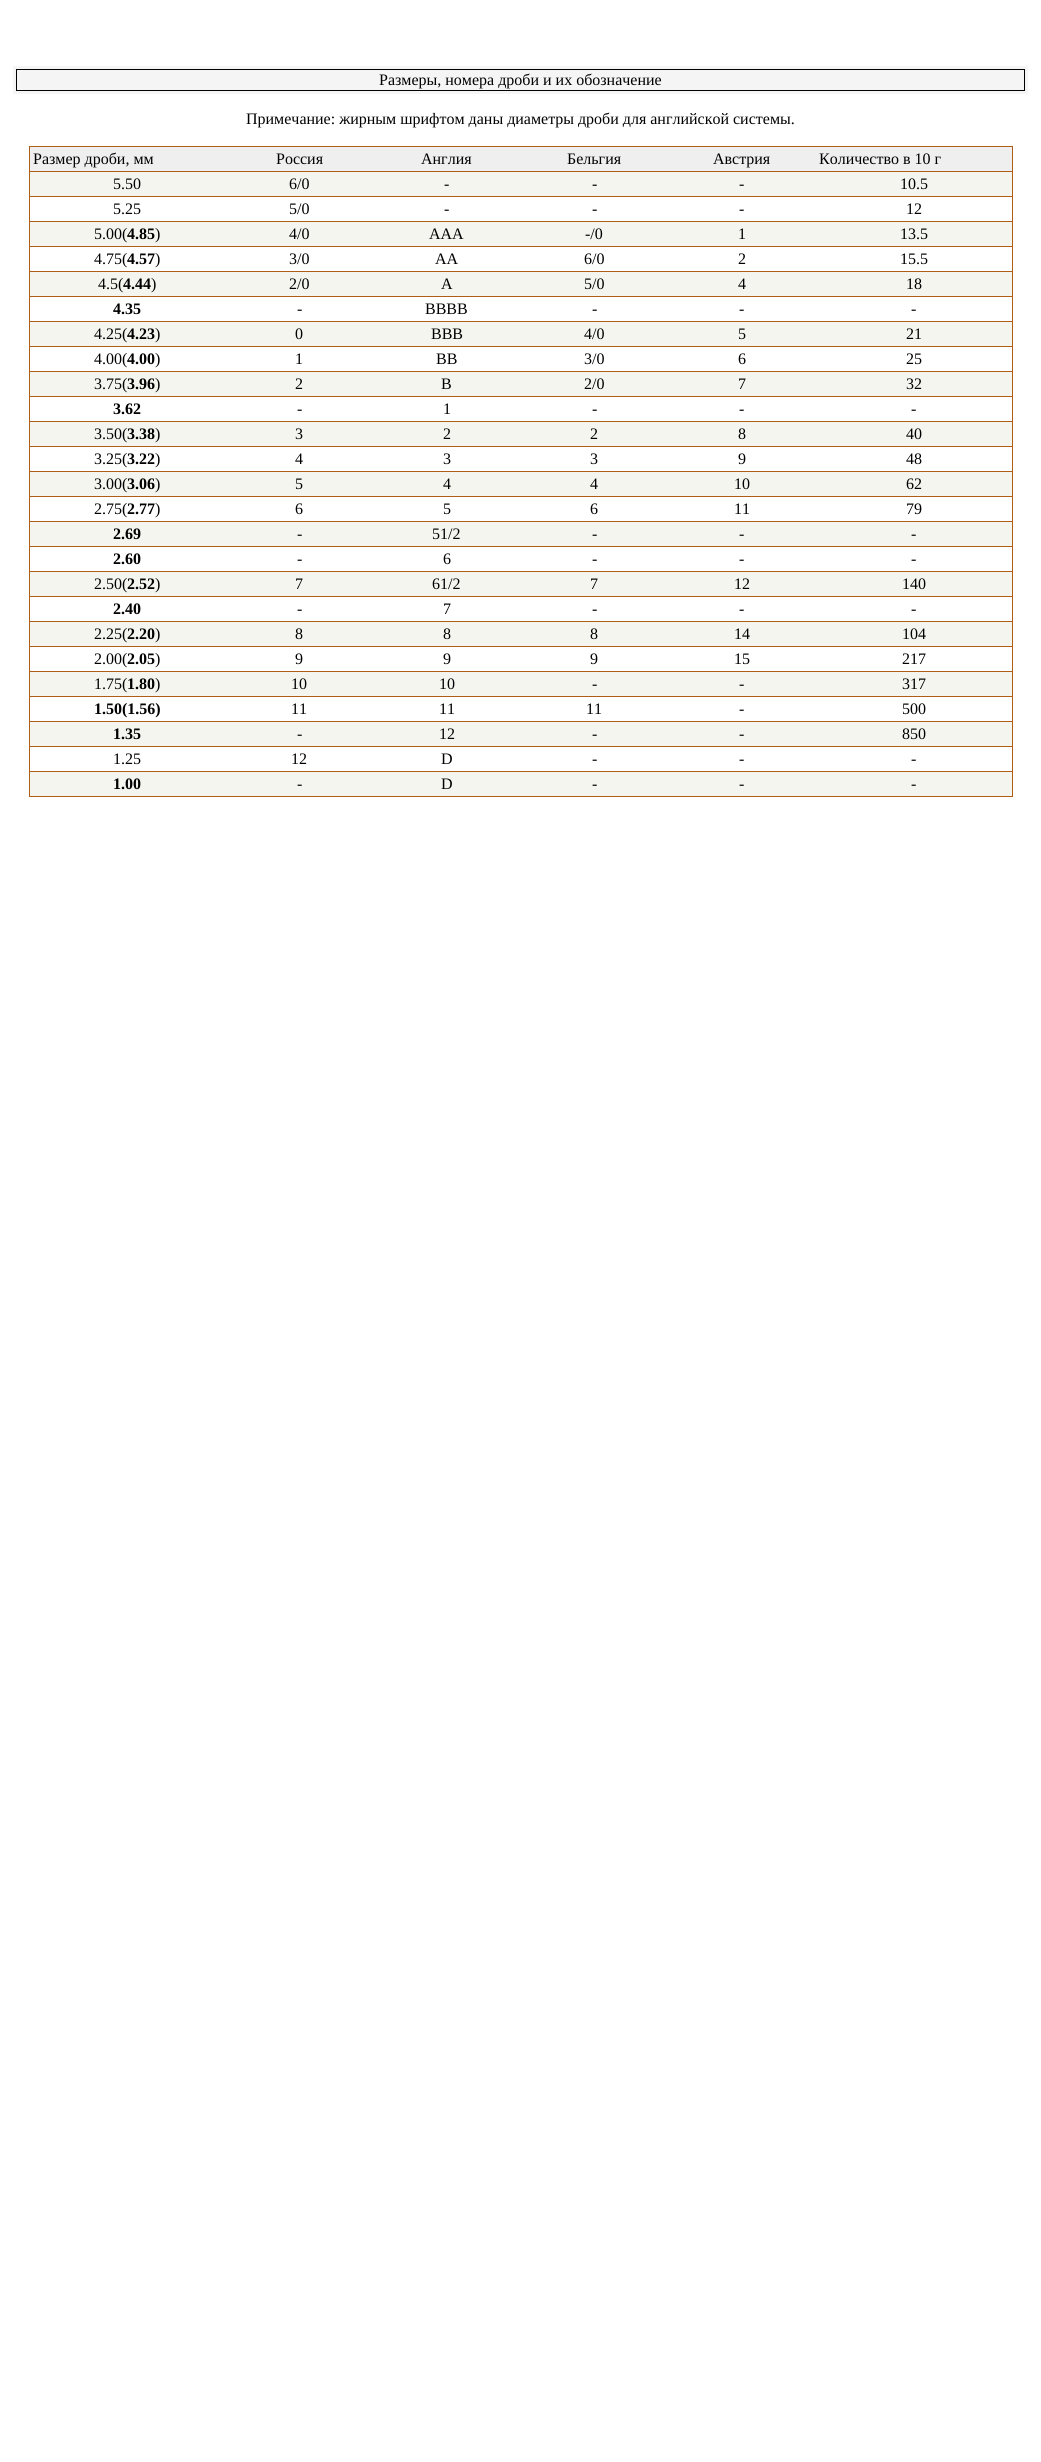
#include <cairo.h>
#include <math.h>
#include <stddef.h>

typedef struct { double x, y; const char *s; } line_t;
typedef struct { double x, y, w, h; unsigned color; } box_t;

static void ink(cairo_t *ctx, unsigned color) {
    cairo_set_source_rgb(ctx, (color >> 16) / 255.0, (color >> 8 & 255) / 255.0, (color & 255) / 255.0);
}

int main(void) {
    cairo_surface_t *surface = cairo_image_surface_create(CAIRO_FORMAT_RGB24, 1041, 2462);
    cairo_t *ctx = cairo_create(surface);
    cairo_font_options_t *options = cairo_font_options_create();
    cairo_font_options_set_hint_metrics(options, CAIRO_HINT_METRICS_OFF);
    cairo_font_options_set_hint_style(options, CAIRO_HINT_STYLE_NONE);
    cairo_set_font_options(ctx, options);
    cairo_set_miter_limit(ctx, 4);
    ink(ctx, 0xFFFFFF);
    cairo_paint(ctx);
    {
        static const box_t items[] = {
            {13, 66, 1015, 28, 0xF5F5F5},
            {16, 69, 1009, 22, 0x000000},
            {17, 70, 1007, 20, 0xF5F5F5},
        };
        for (size_t i = 0; i < sizeof items / sizeof *items; i++) {
            ink(ctx, items[i].color);
            cairo_rectangle(ctx, items[i].x, items[i].y, items[i].w, items[i].h);
            cairo_fill(ctx);
        }
    }
    cairo_select_font_face(ctx, "Liberation Serif", CAIRO_FONT_SLANT_NORMAL, CAIRO_FONT_WEIGHT_NORMAL);
    cairo_set_font_size(ctx, 16);
    ink(ctx, 0x000000);
    cairo_move_to(ctx, 379, 85);
    cairo_show_text(ctx, "Размеры, номера дроби и их обозначение");
    cairo_move_to(ctx, 246, 124);
    cairo_show_text(ctx, "Примечание: жирным шрифтом даны диаметры дроби для английской системы.");
    ink(ctx, 0xAE5E16);
    cairo_rectangle(ctx, 29, 146, 984, 651);
    cairo_fill(ctx);
    ink(ctx, 0xEFEFEF);
    cairo_rectangle(ctx, 30, 147, 982, 24);
    cairo_fill(ctx);
    ink(ctx, 0x000000);
    {
        static const line_t items[] = {
            {33, 164, "Размер дроби, мм"},
            {276, 164, "Россия"},
            {421, 164, "Англия"},
            {567, 164, "Бельгия"},
            {713, 164, "Австрия"},
            {819, 164, "Количество в 10 г"},
        };
        for (size_t i = 0; i < sizeof items / sizeof *items; i++) {
            cairo_move_to(ctx, items[i].x, items[i].y);
            cairo_show_text(ctx, items[i].s);
        }
    }
    ink(ctx, 0xF5F5F0);
    cairo_rectangle(ctx, 30, 172, 982, 24);
    cairo_fill(ctx);
    ink(ctx, 0x000000);
    {
        static const line_t items[] = {
            {113, 189, "5.50"},
            {289, 189, "6/0"},
            {444, 189, "-"},
            {592, 189, "-"},
            {739, 189, "-"},
            {900, 189, "10.5"},
        };
        for (size_t i = 0; i < sizeof items / sizeof *items; i++) {
            cairo_move_to(ctx, items[i].x, items[i].y);
            cairo_show_text(ctx, items[i].s);
        }
    }
    ink(ctx, 0xFFFFFF);
    cairo_rectangle(ctx, 30, 197, 982, 24);
    cairo_fill(ctx);
    ink(ctx, 0x000000);
    {
        static const line_t items[] = {
            {113, 214, "5.25"},
            {289, 214, "5/0"},
            {444, 214, "-"},
            {592, 214, "-"},
            {739, 214, "-"},
            {906, 214, "12"},
        };
        for (size_t i = 0; i < sizeof items / sizeof *items; i++) {
            cairo_move_to(ctx, items[i].x, items[i].y);
            cairo_show_text(ctx, items[i].s);
        }
    }
    ink(ctx, 0xF5F5F0);
    cairo_rectangle(ctx, 30, 222, 982, 24);
    cairo_fill(ctx);
    ink(ctx, 0x000000);
    cairo_move_to(ctx, 94, 239);
    cairo_show_text(ctx, "5.00(");
    cairo_select_font_face(ctx, "Liberation Serif", CAIRO_FONT_SLANT_NORMAL, CAIRO_FONT_WEIGHT_BOLD);
    cairo_move_to(ctx, 127, 239);
    cairo_show_text(ctx, "4.85");
    cairo_select_font_face(ctx, "Liberation Serif", CAIRO_FONT_SLANT_NORMAL, CAIRO_FONT_WEIGHT_NORMAL);
    {
        static const line_t items[] = {
            {155, 239, ")"},
            {289, 239, "4/0"},
            {429, 239, "AAA"},
            {585, 239, "-/0"},
            {738, 239, "1"},
            {900, 239, "13.5"},
        };
        for (size_t i = 0; i < sizeof items / sizeof *items; i++) {
            cairo_move_to(ctx, items[i].x, items[i].y);
            cairo_show_text(ctx, items[i].s);
        }
    }
    ink(ctx, 0xFFFFFF);
    cairo_rectangle(ctx, 30, 247, 982, 24);
    cairo_fill(ctx);
    ink(ctx, 0x000000);
    cairo_move_to(ctx, 94, 264);
    cairo_show_text(ctx, "4.75(");
    cairo_select_font_face(ctx, "Liberation Serif", CAIRO_FONT_SLANT_NORMAL, CAIRO_FONT_WEIGHT_BOLD);
    cairo_move_to(ctx, 127, 264);
    cairo_show_text(ctx, "4.57");
    cairo_select_font_face(ctx, "Liberation Serif", CAIRO_FONT_SLANT_NORMAL, CAIRO_FONT_WEIGHT_NORMAL);
    {
        static const line_t items[] = {
            {155, 264, ")"},
            {289, 264, "3/0"},
            {435, 264, "AA"},
            {584, 264, "6/0"},
            {738, 264, "2"},
            {900, 264, "15.5"},
        };
        for (size_t i = 0; i < sizeof items / sizeof *items; i++) {
            cairo_move_to(ctx, items[i].x, items[i].y);
            cairo_show_text(ctx, items[i].s);
        }
    }
    ink(ctx, 0xF5F5F0);
    cairo_rectangle(ctx, 30, 272, 982, 24);
    cairo_fill(ctx);
    ink(ctx, 0x000000);
    cairo_move_to(ctx, 98, 289);
    cairo_show_text(ctx, "4.5(");
    cairo_select_font_face(ctx, "Liberation Serif", CAIRO_FONT_SLANT_NORMAL, CAIRO_FONT_WEIGHT_BOLD);
    cairo_move_to(ctx, 123, 289);
    cairo_show_text(ctx, "4.44");
    cairo_select_font_face(ctx, "Liberation Serif", CAIRO_FONT_SLANT_NORMAL, CAIRO_FONT_WEIGHT_NORMAL);
    {
        static const line_t items[] = {
            {151, 289, ")"},
            {289, 289, "2/0"},
            {441, 289, "A"},
            {584, 289, "5/0"},
            {738, 289, "4"},
            {906, 289, "18"},
        };
        for (size_t i = 0; i < sizeof items / sizeof *items; i++) {
            cairo_move_to(ctx, items[i].x, items[i].y);
            cairo_show_text(ctx, items[i].s);
        }
    }
    ink(ctx, 0xFFFFFF);
    cairo_rectangle(ctx, 30, 297, 982, 24);
    cairo_fill(ctx);
    cairo_select_font_face(ctx, "Liberation Serif", CAIRO_FONT_SLANT_NORMAL, CAIRO_FONT_WEIGHT_BOLD);
    ink(ctx, 0x000000);
    cairo_move_to(ctx, 113, 314);
    cairo_show_text(ctx, "4.35");
    cairo_select_font_face(ctx, "Liberation Serif", CAIRO_FONT_SLANT_NORMAL, CAIRO_FONT_WEIGHT_NORMAL);
    {
        static const line_t items[] = {
            {297, 314, "-"},
            {425, 314, "BBBB"},
            {592, 314, "-"},
            {739, 314, "-"},
            {911, 314, "-"},
        };
        for (size_t i = 0; i < sizeof items / sizeof *items; i++) {
            cairo_move_to(ctx, items[i].x, items[i].y);
            cairo_show_text(ctx, items[i].s);
        }
    }
    ink(ctx, 0xF5F5F0);
    cairo_rectangle(ctx, 30, 322, 982, 24);
    cairo_fill(ctx);
    ink(ctx, 0x000000);
    cairo_move_to(ctx, 94, 339);
    cairo_show_text(ctx, "4.25(");
    cairo_select_font_face(ctx, "Liberation Serif", CAIRO_FONT_SLANT_NORMAL, CAIRO_FONT_WEIGHT_BOLD);
    cairo_move_to(ctx, 127, 339);
    cairo_show_text(ctx, "4.23");
    cairo_select_font_face(ctx, "Liberation Serif", CAIRO_FONT_SLANT_NORMAL, CAIRO_FONT_WEIGHT_NORMAL);
    {
        static const line_t items[] = {
            {155, 339, ")"},
            {295, 339, "0"},
            {431, 339, "BBB"},
            {584, 339, "4/0"},
            {738, 339, "5"},
            {906, 339, "21"},
        };
        for (size_t i = 0; i < sizeof items / sizeof *items; i++) {
            cairo_move_to(ctx, items[i].x, items[i].y);
            cairo_show_text(ctx, items[i].s);
        }
    }
    ink(ctx, 0xFFFFFF);
    cairo_rectangle(ctx, 30, 347, 982, 24);
    cairo_fill(ctx);
    ink(ctx, 0x000000);
    cairo_move_to(ctx, 94, 364);
    cairo_show_text(ctx, "4.00(");
    cairo_select_font_face(ctx, "Liberation Serif", CAIRO_FONT_SLANT_NORMAL, CAIRO_FONT_WEIGHT_BOLD);
    cairo_move_to(ctx, 127, 364);
    cairo_show_text(ctx, "4.00");
    cairo_select_font_face(ctx, "Liberation Serif", CAIRO_FONT_SLANT_NORMAL, CAIRO_FONT_WEIGHT_NORMAL);
    {
        static const line_t items[] = {
            {155, 364, ")"},
            {295, 364, "1"},
            {436, 364, "BB"},
            {584, 364, "3/0"},
            {738, 364, "6"},
            {906, 364, "25"},
        };
        for (size_t i = 0; i < sizeof items / sizeof *items; i++) {
            cairo_move_to(ctx, items[i].x, items[i].y);
            cairo_show_text(ctx, items[i].s);
        }
    }
    ink(ctx, 0xF5F5F0);
    cairo_rectangle(ctx, 30, 372, 982, 24);
    cairo_fill(ctx);
    ink(ctx, 0x000000);
    cairo_move_to(ctx, 94, 389);
    cairo_show_text(ctx, "3.75(");
    cairo_select_font_face(ctx, "Liberation Serif", CAIRO_FONT_SLANT_NORMAL, CAIRO_FONT_WEIGHT_BOLD);
    cairo_move_to(ctx, 127, 389);
    cairo_show_text(ctx, "3.96");
    cairo_select_font_face(ctx, "Liberation Serif", CAIRO_FONT_SLANT_NORMAL, CAIRO_FONT_WEIGHT_NORMAL);
    {
        static const line_t items[] = {
            {155, 389, ")"},
            {295, 389, "2"},
            {441, 389, "B"},
            {584, 389, "2/0"},
            {738, 389, "7"},
            {906, 389, "32"},
        };
        for (size_t i = 0; i < sizeof items / sizeof *items; i++) {
            cairo_move_to(ctx, items[i].x, items[i].y);
            cairo_show_text(ctx, items[i].s);
        }
    }
    ink(ctx, 0xFFFFFF);
    cairo_rectangle(ctx, 30, 397, 982, 24);
    cairo_fill(ctx);
    cairo_select_font_face(ctx, "Liberation Serif", CAIRO_FONT_SLANT_NORMAL, CAIRO_FONT_WEIGHT_BOLD);
    ink(ctx, 0x000000);
    cairo_move_to(ctx, 113, 414);
    cairo_show_text(ctx, "3.62");
    cairo_select_font_face(ctx, "Liberation Serif", CAIRO_FONT_SLANT_NORMAL, CAIRO_FONT_WEIGHT_NORMAL);
    {
        static const line_t items[] = {
            {297, 414, "-"},
            {443, 414, "1"},
            {592, 414, "-"},
            {739, 414, "-"},
            {911, 414, "-"},
        };
        for (size_t i = 0; i < sizeof items / sizeof *items; i++) {
            cairo_move_to(ctx, items[i].x, items[i].y);
            cairo_show_text(ctx, items[i].s);
        }
    }
    ink(ctx, 0xF5F5F0);
    cairo_rectangle(ctx, 30, 422, 982, 24);
    cairo_fill(ctx);
    ink(ctx, 0x000000);
    cairo_move_to(ctx, 94, 439);
    cairo_show_text(ctx, "3.50(");
    cairo_select_font_face(ctx, "Liberation Serif", CAIRO_FONT_SLANT_NORMAL, CAIRO_FONT_WEIGHT_BOLD);
    cairo_move_to(ctx, 127, 439);
    cairo_show_text(ctx, "3.38");
    cairo_select_font_face(ctx, "Liberation Serif", CAIRO_FONT_SLANT_NORMAL, CAIRO_FONT_WEIGHT_NORMAL);
    {
        static const line_t items[] = {
            {155, 439, ")"},
            {295, 439, "3"},
            {443, 439, "2"},
            {590, 439, "2"},
            {738, 439, "8"},
            {906, 439, "40"},
        };
        for (size_t i = 0; i < sizeof items / sizeof *items; i++) {
            cairo_move_to(ctx, items[i].x, items[i].y);
            cairo_show_text(ctx, items[i].s);
        }
    }
    ink(ctx, 0xFFFFFF);
    cairo_rectangle(ctx, 30, 447, 982, 24);
    cairo_fill(ctx);
    ink(ctx, 0x000000);
    cairo_move_to(ctx, 94, 464);
    cairo_show_text(ctx, "3.25(");
    cairo_select_font_face(ctx, "Liberation Serif", CAIRO_FONT_SLANT_NORMAL, CAIRO_FONT_WEIGHT_BOLD);
    cairo_move_to(ctx, 127, 464);
    cairo_show_text(ctx, "3.22");
    cairo_select_font_face(ctx, "Liberation Serif", CAIRO_FONT_SLANT_NORMAL, CAIRO_FONT_WEIGHT_NORMAL);
    {
        static const line_t items[] = {
            {155, 464, ")"},
            {295, 464, "4"},
            {443, 464, "3"},
            {590, 464, "3"},
            {738, 464, "9"},
            {906, 464, "48"},
        };
        for (size_t i = 0; i < sizeof items / sizeof *items; i++) {
            cairo_move_to(ctx, items[i].x, items[i].y);
            cairo_show_text(ctx, items[i].s);
        }
    }
    ink(ctx, 0xF5F5F0);
    cairo_rectangle(ctx, 30, 472, 982, 24);
    cairo_fill(ctx);
    ink(ctx, 0x000000);
    cairo_move_to(ctx, 94, 489);
    cairo_show_text(ctx, "3.00(");
    cairo_select_font_face(ctx, "Liberation Serif", CAIRO_FONT_SLANT_NORMAL, CAIRO_FONT_WEIGHT_BOLD);
    cairo_move_to(ctx, 127, 489);
    cairo_show_text(ctx, "3.06");
    cairo_select_font_face(ctx, "Liberation Serif", CAIRO_FONT_SLANT_NORMAL, CAIRO_FONT_WEIGHT_NORMAL);
    {
        static const line_t items[] = {
            {155, 489, ")"},
            {295, 489, "5"},
            {443, 489, "4"},
            {590, 489, "4"},
            {734, 489, "10"},
            {906, 489, "62"},
        };
        for (size_t i = 0; i < sizeof items / sizeof *items; i++) {
            cairo_move_to(ctx, items[i].x, items[i].y);
            cairo_show_text(ctx, items[i].s);
        }
    }
    ink(ctx, 0xFFFFFF);
    cairo_rectangle(ctx, 30, 497, 982, 24);
    cairo_fill(ctx);
    ink(ctx, 0x000000);
    cairo_move_to(ctx, 94, 514);
    cairo_show_text(ctx, "2.75(");
    cairo_select_font_face(ctx, "Liberation Serif", CAIRO_FONT_SLANT_NORMAL, CAIRO_FONT_WEIGHT_BOLD);
    cairo_move_to(ctx, 127, 514);
    cairo_show_text(ctx, "2.77");
    cairo_select_font_face(ctx, "Liberation Serif", CAIRO_FONT_SLANT_NORMAL, CAIRO_FONT_WEIGHT_NORMAL);
    {
        static const line_t items[] = {
            {155, 514, ")"},
            {295, 514, "6"},
            {443, 514, "5"},
            {590, 514, "6"},
            {734, 514, "11"},
            {906, 514, "79"},
        };
        for (size_t i = 0; i < sizeof items / sizeof *items; i++) {
            cairo_move_to(ctx, items[i].x, items[i].y);
            cairo_show_text(ctx, items[i].s);
        }
    }
    ink(ctx, 0xF5F5F0);
    cairo_rectangle(ctx, 30, 522, 982, 24);
    cairo_fill(ctx);
    cairo_select_font_face(ctx, "Liberation Serif", CAIRO_FONT_SLANT_NORMAL, CAIRO_FONT_WEIGHT_BOLD);
    ink(ctx, 0x000000);
    cairo_move_to(ctx, 113, 539);
    cairo_show_text(ctx, "2.69");
    cairo_select_font_face(ctx, "Liberation Serif", CAIRO_FONT_SLANT_NORMAL, CAIRO_FONT_WEIGHT_NORMAL);
    {
        static const line_t items[] = {
            {297, 539, "-"},
            {432, 539, "51/2"},
            {592, 539, "-"},
            {739, 539, "-"},
            {911, 539, "-"},
        };
        for (size_t i = 0; i < sizeof items / sizeof *items; i++) {
            cairo_move_to(ctx, items[i].x, items[i].y);
            cairo_show_text(ctx, items[i].s);
        }
    }
    ink(ctx, 0xFFFFFF);
    cairo_rectangle(ctx, 30, 547, 982, 24);
    cairo_fill(ctx);
    cairo_select_font_face(ctx, "Liberation Serif", CAIRO_FONT_SLANT_NORMAL, CAIRO_FONT_WEIGHT_BOLD);
    ink(ctx, 0x000000);
    cairo_move_to(ctx, 113, 564);
    cairo_show_text(ctx, "2.60");
    cairo_select_font_face(ctx, "Liberation Serif", CAIRO_FONT_SLANT_NORMAL, CAIRO_FONT_WEIGHT_NORMAL);
    {
        static const line_t items[] = {
            {297, 564, "-"},
            {443, 564, "6"},
            {592, 564, "-"},
            {739, 564, "-"},
            {911, 564, "-"},
        };
        for (size_t i = 0; i < sizeof items / sizeof *items; i++) {
            cairo_move_to(ctx, items[i].x, items[i].y);
            cairo_show_text(ctx, items[i].s);
        }
    }
    ink(ctx, 0xF5F5F0);
    cairo_rectangle(ctx, 30, 572, 982, 24);
    cairo_fill(ctx);
    ink(ctx, 0x000000);
    cairo_move_to(ctx, 94, 589);
    cairo_show_text(ctx, "2.50(");
    cairo_select_font_face(ctx, "Liberation Serif", CAIRO_FONT_SLANT_NORMAL, CAIRO_FONT_WEIGHT_BOLD);
    cairo_move_to(ctx, 127, 589);
    cairo_show_text(ctx, "2.52");
    cairo_select_font_face(ctx, "Liberation Serif", CAIRO_FONT_SLANT_NORMAL, CAIRO_FONT_WEIGHT_NORMAL);
    {
        static const line_t items[] = {
            {155, 589, ")"},
            {295, 589, "7"},
            {432, 589, "61/2"},
            {590, 589, "7"},
            {734, 589, "12"},
            {902, 589, "140"},
        };
        for (size_t i = 0; i < sizeof items / sizeof *items; i++) {
            cairo_move_to(ctx, items[i].x, items[i].y);
            cairo_show_text(ctx, items[i].s);
        }
    }
    ink(ctx, 0xFFFFFF);
    cairo_rectangle(ctx, 30, 597, 982, 24);
    cairo_fill(ctx);
    cairo_select_font_face(ctx, "Liberation Serif", CAIRO_FONT_SLANT_NORMAL, CAIRO_FONT_WEIGHT_BOLD);
    ink(ctx, 0x000000);
    cairo_move_to(ctx, 113, 614);
    cairo_show_text(ctx, "2.40");
    cairo_select_font_face(ctx, "Liberation Serif", CAIRO_FONT_SLANT_NORMAL, CAIRO_FONT_WEIGHT_NORMAL);
    {
        static const line_t items[] = {
            {297, 614, "-"},
            {443, 614, "7"},
            {592, 614, "-"},
            {739, 614, "-"},
            {911, 614, "-"},
        };
        for (size_t i = 0; i < sizeof items / sizeof *items; i++) {
            cairo_move_to(ctx, items[i].x, items[i].y);
            cairo_show_text(ctx, items[i].s);
        }
    }
    ink(ctx, 0xF5F5F0);
    cairo_rectangle(ctx, 30, 622, 982, 24);
    cairo_fill(ctx);
    ink(ctx, 0x000000);
    cairo_move_to(ctx, 94, 639);
    cairo_show_text(ctx, "2.25(");
    cairo_select_font_face(ctx, "Liberation Serif", CAIRO_FONT_SLANT_NORMAL, CAIRO_FONT_WEIGHT_BOLD);
    cairo_move_to(ctx, 127, 639);
    cairo_show_text(ctx, "2.20");
    cairo_select_font_face(ctx, "Liberation Serif", CAIRO_FONT_SLANT_NORMAL, CAIRO_FONT_WEIGHT_NORMAL);
    {
        static const line_t items[] = {
            {155, 639, ")"},
            {295, 639, "8"},
            {443, 639, "8"},
            {590, 639, "8"},
            {734, 639, "14"},
            {902, 639, "104"},
        };
        for (size_t i = 0; i < sizeof items / sizeof *items; i++) {
            cairo_move_to(ctx, items[i].x, items[i].y);
            cairo_show_text(ctx, items[i].s);
        }
    }
    ink(ctx, 0xFFFFFF);
    cairo_rectangle(ctx, 30, 647, 982, 24);
    cairo_fill(ctx);
    ink(ctx, 0x000000);
    cairo_move_to(ctx, 94, 664);
    cairo_show_text(ctx, "2.00(");
    cairo_select_font_face(ctx, "Liberation Serif", CAIRO_FONT_SLANT_NORMAL, CAIRO_FONT_WEIGHT_BOLD);
    cairo_move_to(ctx, 127, 664);
    cairo_show_text(ctx, "2.05");
    cairo_select_font_face(ctx, "Liberation Serif", CAIRO_FONT_SLANT_NORMAL, CAIRO_FONT_WEIGHT_NORMAL);
    {
        static const line_t items[] = {
            {155, 664, ")"},
            {295, 664, "9"},
            {443, 664, "9"},
            {590, 664, "9"},
            {734, 664, "15"},
            {902, 664, "217"},
        };
        for (size_t i = 0; i < sizeof items / sizeof *items; i++) {
            cairo_move_to(ctx, items[i].x, items[i].y);
            cairo_show_text(ctx, items[i].s);
        }
    }
    ink(ctx, 0xF5F5F0);
    cairo_rectangle(ctx, 30, 672, 982, 24);
    cairo_fill(ctx);
    ink(ctx, 0x000000);
    cairo_move_to(ctx, 94, 689);
    cairo_show_text(ctx, "1.75(");
    cairo_select_font_face(ctx, "Liberation Serif", CAIRO_FONT_SLANT_NORMAL, CAIRO_FONT_WEIGHT_BOLD);
    cairo_move_to(ctx, 127, 689);
    cairo_show_text(ctx, "1.80");
    cairo_select_font_face(ctx, "Liberation Serif", CAIRO_FONT_SLANT_NORMAL, CAIRO_FONT_WEIGHT_NORMAL);
    {
        static const line_t items[] = {
            {155, 689, ")"},
            {291, 689, "10"},
            {439, 689, "10"},
            {592, 689, "-"},
            {739, 689, "-"},
            {902, 689, "317"},
        };
        for (size_t i = 0; i < sizeof items / sizeof *items; i++) {
            cairo_move_to(ctx, items[i].x, items[i].y);
            cairo_show_text(ctx, items[i].s);
        }
    }
    ink(ctx, 0xFFFFFF);
    cairo_rectangle(ctx, 30, 697, 982, 24);
    cairo_fill(ctx);
    cairo_select_font_face(ctx, "Liberation Serif", CAIRO_FONT_SLANT_NORMAL, CAIRO_FONT_WEIGHT_BOLD);
    ink(ctx, 0x000000);
    cairo_move_to(ctx, 94, 714);
    cairo_show_text(ctx, "1.50(1.56)");
    cairo_select_font_face(ctx, "Liberation Serif", CAIRO_FONT_SLANT_NORMAL, CAIRO_FONT_WEIGHT_NORMAL);
    {
        static const line_t items[] = {
            {291, 714, "11"},
            {439, 714, "11"},
            {586, 714, "11"},
            {739, 714, "-"},
            {902, 714, "500"},
        };
        for (size_t i = 0; i < sizeof items / sizeof *items; i++) {
            cairo_move_to(ctx, items[i].x, items[i].y);
            cairo_show_text(ctx, items[i].s);
        }
    }
    ink(ctx, 0xF5F5F0);
    cairo_rectangle(ctx, 30, 722, 982, 24);
    cairo_fill(ctx);
    cairo_select_font_face(ctx, "Liberation Serif", CAIRO_FONT_SLANT_NORMAL, CAIRO_FONT_WEIGHT_BOLD);
    ink(ctx, 0x000000);
    cairo_move_to(ctx, 113, 739);
    cairo_show_text(ctx, "1.35");
    cairo_select_font_face(ctx, "Liberation Serif", CAIRO_FONT_SLANT_NORMAL, CAIRO_FONT_WEIGHT_NORMAL);
    {
        static const line_t items[] = {
            {297, 739, "-"},
            {439, 739, "12"},
            {592, 739, "-"},
            {739, 739, "-"},
            {902, 739, "850"},
        };
        for (size_t i = 0; i < sizeof items / sizeof *items; i++) {
            cairo_move_to(ctx, items[i].x, items[i].y);
            cairo_show_text(ctx, items[i].s);
        }
    }
    ink(ctx, 0xFFFFFF);
    cairo_rectangle(ctx, 30, 747, 982, 24);
    cairo_fill(ctx);
    ink(ctx, 0x000000);
    {
        static const line_t items[] = {
            {113, 764, "1.25"},
            {291, 764, "12"},
            {441, 764, "D"},
            {592, 764, "-"},
            {739, 764, "-"},
            {911, 764, "-"},
        };
        for (size_t i = 0; i < sizeof items / sizeof *items; i++) {
            cairo_move_to(ctx, items[i].x, items[i].y);
            cairo_show_text(ctx, items[i].s);
        }
    }
    ink(ctx, 0xF5F5F0);
    cairo_rectangle(ctx, 30, 772, 982, 24);
    cairo_fill(ctx);
    cairo_select_font_face(ctx, "Liberation Serif", CAIRO_FONT_SLANT_NORMAL, CAIRO_FONT_WEIGHT_BOLD);
    ink(ctx, 0x000000);
    cairo_move_to(ctx, 113, 789);
    cairo_show_text(ctx, "1.00");
    cairo_select_font_face(ctx, "Liberation Serif", CAIRO_FONT_SLANT_NORMAL, CAIRO_FONT_WEIGHT_NORMAL);
    {
        static const line_t items[] = {
            {297, 789, "-"},
            {441, 789, "D"},
            {592, 789, "-"},
            {739, 789, "-"},
            {911, 789, "-"},
        };
        for (size_t i = 0; i < sizeof items / sizeof *items; i++) {
            cairo_move_to(ctx, items[i].x, items[i].y);
            cairo_show_text(ctx, items[i].s);
        }
    }
    cairo_surface_write_to_png(surface, "image.png");
    cairo_font_options_destroy(options);
    cairo_destroy(ctx);
    cairo_surface_destroy(surface);
    return 0;
}
